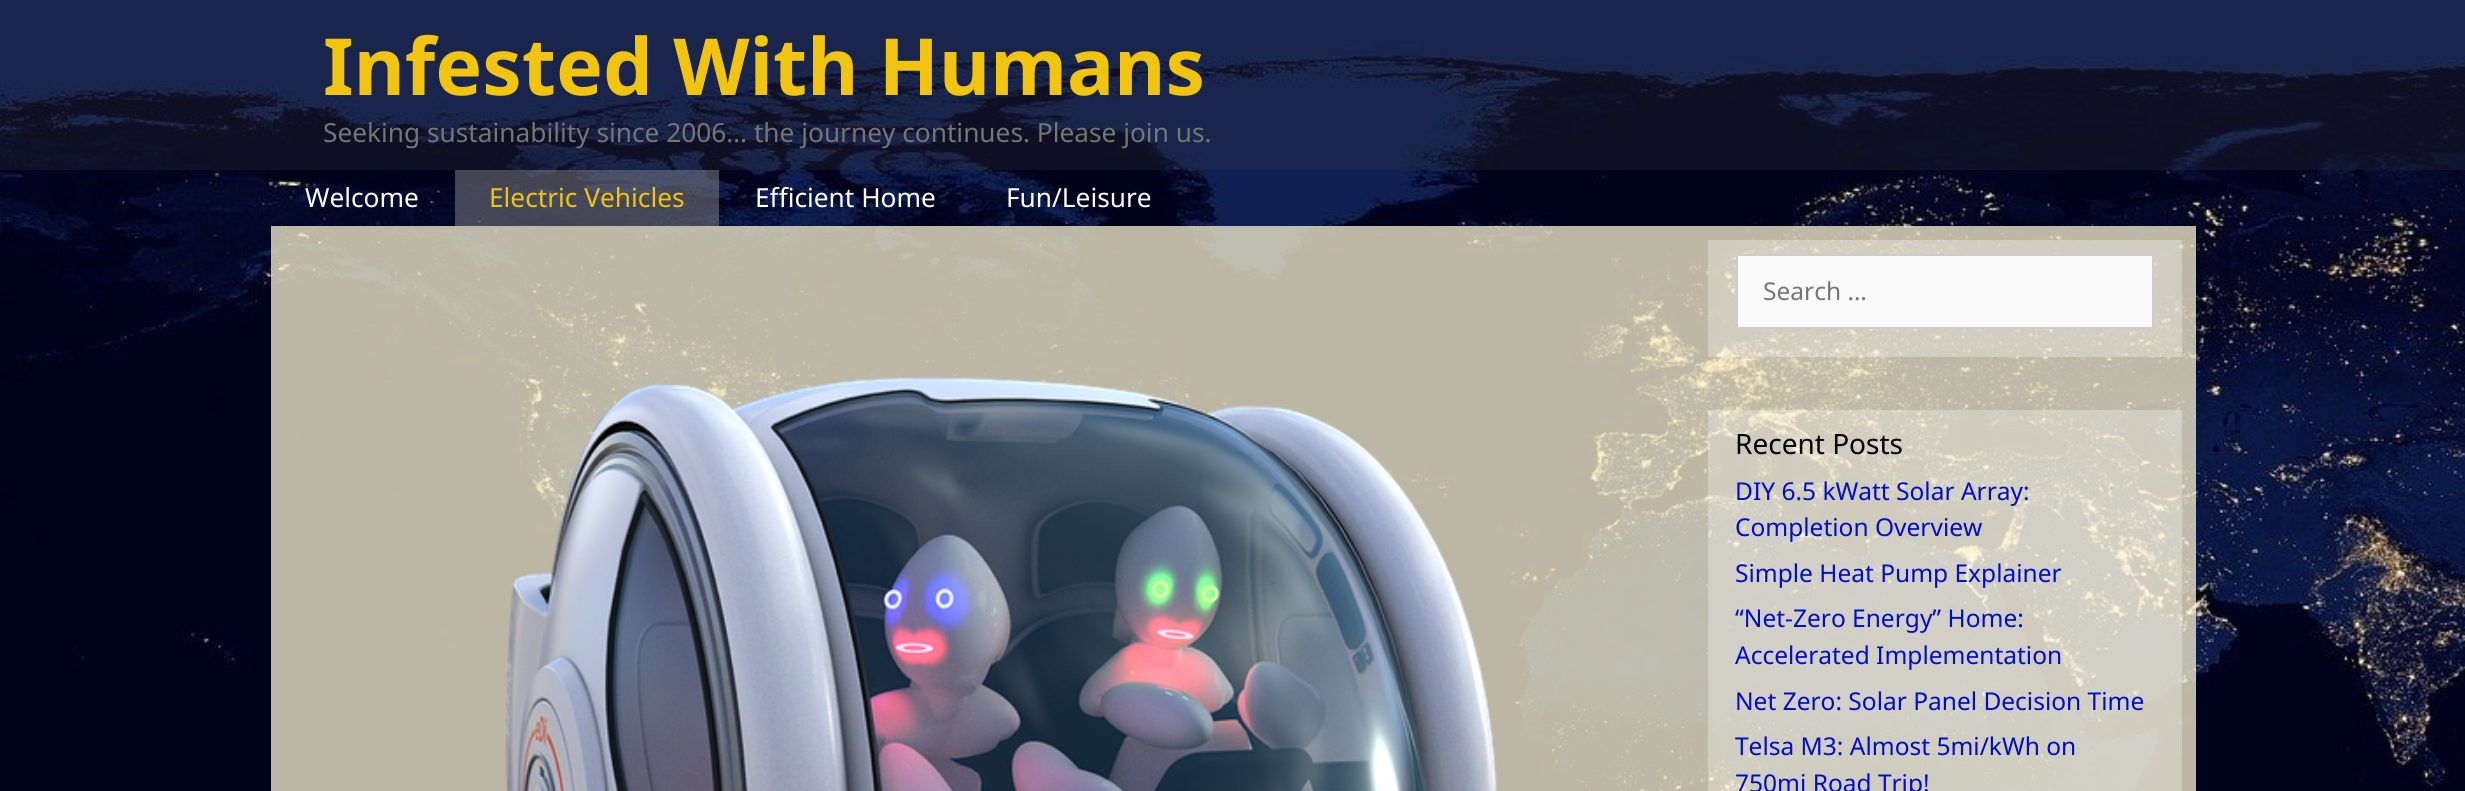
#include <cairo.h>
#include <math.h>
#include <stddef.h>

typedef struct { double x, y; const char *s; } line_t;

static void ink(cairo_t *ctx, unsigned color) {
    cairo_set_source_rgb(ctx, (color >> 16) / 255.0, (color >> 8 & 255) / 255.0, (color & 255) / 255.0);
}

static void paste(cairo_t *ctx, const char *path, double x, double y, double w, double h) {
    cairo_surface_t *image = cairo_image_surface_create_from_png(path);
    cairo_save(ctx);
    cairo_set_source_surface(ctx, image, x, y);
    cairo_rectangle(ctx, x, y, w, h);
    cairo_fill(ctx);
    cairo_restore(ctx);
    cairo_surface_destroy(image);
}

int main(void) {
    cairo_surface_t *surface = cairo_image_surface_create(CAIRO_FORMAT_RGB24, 2465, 791);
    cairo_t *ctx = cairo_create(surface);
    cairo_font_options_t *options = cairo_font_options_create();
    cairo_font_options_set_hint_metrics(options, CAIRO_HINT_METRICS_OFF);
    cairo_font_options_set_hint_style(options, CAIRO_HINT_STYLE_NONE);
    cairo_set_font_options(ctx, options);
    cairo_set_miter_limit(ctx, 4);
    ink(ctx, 0xFFFFFF);
    cairo_paint(ctx);
    paste(ctx, "media/1.png", 0, 0, 2465, 791);
    cairo_set_source_rgba(ctx, 0.239, 0.239, 0.239, 0.22);
    cairo_rectangle(ctx, 0, 0, 2465, 170);
    cairo_fill(ctx);
    cairo_select_font_face(ctx, "Noto Sans", CAIRO_FONT_SLANT_NORMAL, CAIRO_FONT_WEIGHT_BOLD);
    cairo_set_font_size(ctx, 78.75);
    ink(ctx, 0xF1C40F);
    cairo_move_to(ctx, 323, 95);
    cairo_show_text(ctx, "Infested With Humans");
    cairo_select_font_face(ctx, "Noto Sans", CAIRO_FONT_SLANT_NORMAL, CAIRO_FONT_WEIGHT_NORMAL);
    cairo_set_font_size(ctx, 26.25);
    ink(ctx, 0x757575);
    cairo_move_to(ctx, 323, 142);
    cairo_show_text(ctx, "Seeking sustainability since 2006… the journey continues. Please join us.");
    ink(ctx, 0xFFFFFF);
    cairo_move_to(ctx, 305, 207);
    cairo_show_text(ctx, "Welcome");
    cairo_set_source_rgba(ctx, 0.518, 0.518, 0.518, 0.51);
    cairo_rectangle(ctx, 455, 170, 264, 56);
    cairo_fill(ctx);
    ink(ctx, 0xF1C40F);
    cairo_move_to(ctx, 489, 207);
    cairo_show_text(ctx, "Electric Vehicles");
    ink(ctx, 0xFFFFFF);
    cairo_move_to(ctx, 755, 207);
    cairo_show_text(ctx, "Efficient Home");
    cairo_move_to(ctx, 1006, 207);
    cairo_show_text(ctx, "Fun/Leisure");
    cairo_set_source_rgba(ctx, 0.984, 0.953, 0.82, 0.75);
    cairo_rectangle(ctx, 271, 226, 1925, 565);
    cairo_fill(ctx);
    paste(ctx, "media/2.png", 505, 376, 992, 415);
    cairo_set_source_rgba(ctx, 1, 1, 1, 0.29);
    cairo_rectangle(ctx, 1708, 240, 474, 117);
    cairo_fill(ctx);
    ink(ctx, 0xFAFAFA);
    cairo_rectangle(ctx, 1737, 255, 416, 73);
    cairo_fill_preserve(ctx);
    ink(ctx, 0xCCCCCC);
    cairo_stroke(ctx);
    cairo_set_font_size(ctx, 24.5);
    ink(ctx, 0x757575);
    cairo_move_to(ctx, 1763, 300);
    cairo_show_text(ctx, "Search …");
    cairo_set_source_rgba(ctx, 1, 1, 1, 0.29);
    cairo_rectangle(ctx, 1708, 410, 474, 381);
    cairo_fill(ctx);
    cairo_set_font_size(ctx, 28);
    ink(ctx, 0x000000);
    cairo_move_to(ctx, 1735, 454);
    cairo_show_text(ctx, "Recent Posts");
    cairo_set_font_size(ctx, 24.5);
    ink(ctx, 0x000DC9);
    {
        static const line_t items[] = {
            {1735, 500, "DIY 6.5 kWatt Solar Array:"},
            {1735, 536, "Completion Overview"},
            {1735, 582, "Simple Heat Pump Explainer"},
            {1735, 627, "“Net-Zero Energy” Home:"},
            {1735, 664, "Accelerated Implementation"},
            {1735, 710, "Net Zero: Solar Panel Decision Time"},
            {1735, 755, "Telsa M3: Almost 5mi/kWh on"},
            {1735, 792, "750mi Road Trip!"},
        };
        for (size_t i = 0; i < sizeof items / sizeof *items; i++) {
            cairo_move_to(ctx, items[i].x, items[i].y);
            cairo_show_text(ctx, items[i].s);
        }
    }
    cairo_surface_write_to_png(surface, "image.png");
    cairo_font_options_destroy(options);
    cairo_destroy(ctx);
    cairo_surface_destroy(surface);
    return 0;
}
